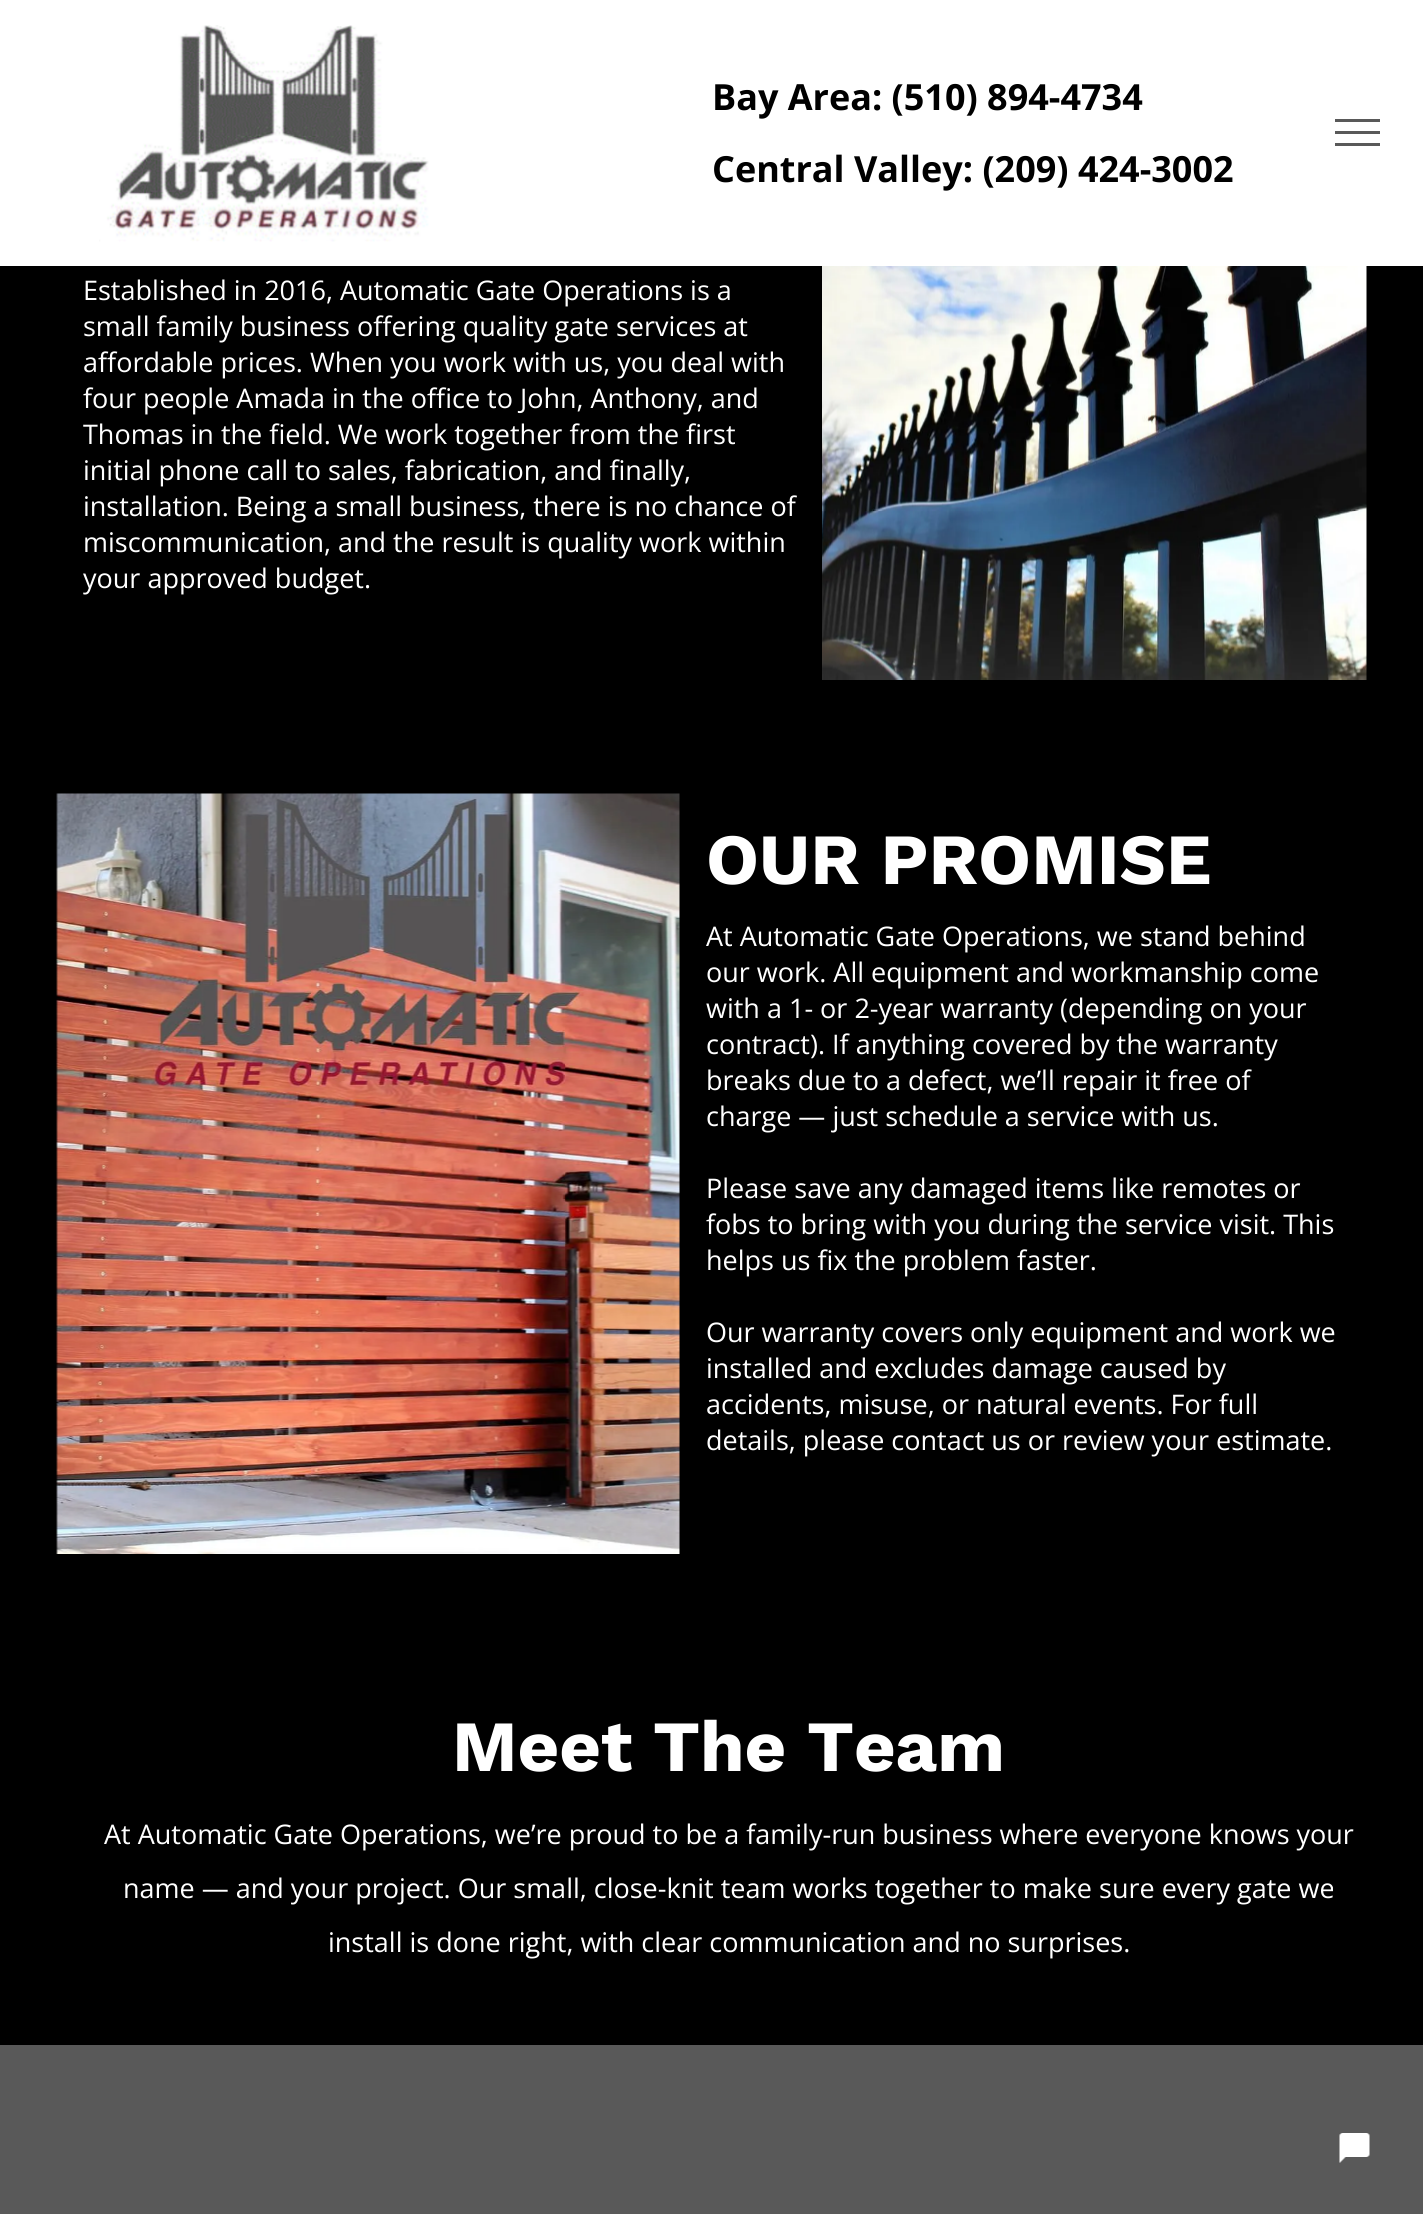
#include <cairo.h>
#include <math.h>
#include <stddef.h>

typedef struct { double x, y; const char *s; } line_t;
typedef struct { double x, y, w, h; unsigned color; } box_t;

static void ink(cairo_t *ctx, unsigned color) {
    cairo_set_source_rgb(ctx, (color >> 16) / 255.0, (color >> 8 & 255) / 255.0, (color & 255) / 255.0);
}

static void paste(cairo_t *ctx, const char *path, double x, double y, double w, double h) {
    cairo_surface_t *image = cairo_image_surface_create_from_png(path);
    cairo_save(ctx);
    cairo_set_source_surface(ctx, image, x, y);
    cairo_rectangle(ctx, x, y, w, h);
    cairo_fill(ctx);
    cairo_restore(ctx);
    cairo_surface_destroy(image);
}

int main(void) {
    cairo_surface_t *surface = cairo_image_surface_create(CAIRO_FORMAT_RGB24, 1423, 2214);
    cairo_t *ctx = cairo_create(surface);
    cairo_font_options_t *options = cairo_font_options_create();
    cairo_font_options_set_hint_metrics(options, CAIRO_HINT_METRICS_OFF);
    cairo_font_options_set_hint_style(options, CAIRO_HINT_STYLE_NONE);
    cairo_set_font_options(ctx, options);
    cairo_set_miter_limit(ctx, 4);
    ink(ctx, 0x000000);
    cairo_paint(ctx);
    ink(ctx, 0xFFFFFF);
    cairo_rectangle(ctx, 0, 0, 1423, 266);
    cairo_fill(ctx);
    paste(ctx, "media/1.png", 99, 25, 330, 217);
    cairo_select_font_face(ctx, "Open Sans", CAIRO_FONT_SLANT_NORMAL, CAIRO_FONT_WEIGHT_BOLD);
    cairo_set_font_size(ctx, 36);
    ink(ctx, 0x000000);
    cairo_move_to(ctx, 712, 110);
    cairo_show_text(ctx, "Bay Area: (510) 894-4734");
    cairo_move_to(ctx, 712, 182);
    cairo_show_text(ctx, "Central Valley: (209) 424-3002");
    {
        static const box_t items[] = {
            {1335, 119, 45, 3, 0x595959},
            {1335, 131, 45, 3, 0x595959},
            {1335, 143, 45, 3, 0x595959},
        };
        for (size_t i = 0; i < sizeof items / sizeof *items; i++) {
            ink(ctx, items[i].color);
            cairo_rectangle(ctx, items[i].x, items[i].y, items[i].w, items[i].h);
            cairo_fill(ctx);
        }
    }
    cairo_select_font_face(ctx, "Open Sans", CAIRO_FONT_SLANT_NORMAL, CAIRO_FONT_WEIGHT_NORMAL);
    cairo_set_font_size(ctx, 27);
    ink(ctx, 0xFFFFFF);
    {
        static const line_t items[] = {
            {83, 300, "Established in 2016, Automatic Gate Operations is a"},
            {83, 336, "small family business offering quality gate services at"},
            {83, 372, "affordable prices. When you work with us, you deal with"},
            {83, 408, "four people Amada in the office to John, Anthony, and"},
            {83, 444, "Thomas in the field. We work together from the first"},
            {83, 480, "initial phone call to sales, fabrication, and finally,"},
            {83, 516, "installation. Being a small business, there is no chance of"},
            {83, 552, "miscommunication, and the result is quality work within"},
            {83, 588, "your approved budget."},
        };
        for (size_t i = 0; i < sizeof items / sizeof *items; i++) {
            cairo_move_to(ctx, items[i].x, items[i].y);
            cairo_show_text(ctx, items[i].s);
        }
    }
    paste(ctx, "media/2.png", 822, 266, 545, 414);
    paste(ctx, "media/3.png", 56, 793, 624, 761);
    cairo_select_font_face(ctx, "Work Sans", CAIRO_FONT_SLANT_NORMAL, CAIRO_FONT_WEIGHT_BOLD);
    cairo_set_font_size(ctx, 72);
    cairo_move_to(ctx, 706, 884);
    cairo_show_text(ctx, "OUR PROMISE");
    cairo_select_font_face(ctx, "Open Sans", CAIRO_FONT_SLANT_NORMAL, CAIRO_FONT_WEIGHT_NORMAL);
    cairo_set_font_size(ctx, 27);
    {
        static const line_t items[] = {
            {706, 946, "At Automatic Gate Operations, we stand behind"},
            {706, 982, "our work. All equipment and workmanship come"},
            {706, 1018, "with a 1- or 2-year warranty (depending on your"},
            {706, 1054, "contract). If anything covered by the warranty"},
            {706, 1090, "breaks due to a defect, we’ll repair it free of"},
            {706, 1126, "charge — just schedule a service with us."},
            {706, 1198, "Please save any damaged items like remotes or"},
            {706, 1234, "fobs to bring with you during the service visit. This"},
            {706, 1270, "helps us fix the problem faster."},
            {706, 1342, "Our warranty covers only equipment and work we"},
            {706, 1378, "installed and excludes damage caused by"},
            {706, 1414, "accidents, misuse, or natural events. For full"},
            {706, 1450, "details, please contact us or review your estimate."},
        };
        for (size_t i = 0; i < sizeof items / sizeof *items; i++) {
            cairo_move_to(ctx, items[i].x, items[i].y);
            cairo_show_text(ctx, items[i].s);
        }
    }
    cairo_select_font_face(ctx, "Work Sans", CAIRO_FONT_SLANT_NORMAL, CAIRO_FONT_WEIGHT_BOLD);
    cairo_set_font_size(ctx, 72);
    cairo_move_to(ctx, 452, 1771);
    cairo_show_text(ctx, "Meet The Team");
    cairo_select_font_face(ctx, "Open Sans", CAIRO_FONT_SLANT_NORMAL, CAIRO_FONT_WEIGHT_NORMAL);
    cairo_set_font_size(ctx, 27);
    {
        static const line_t items[] = {
            {104, 1844, "At Automatic Gate Operations, we’re proud to be a family-run business where everyone knows your"},
            {123, 1898, "name — and your project. Our small, close-knit team works together to make sure every gate we"},
            {328, 1952, "install is done right, with clear communication and no surprises."},
        };
        for (size_t i = 0; i < sizeof items / sizeof *items; i++) {
            cairo_move_to(ctx, items[i].x, items[i].y);
            cairo_show_text(ctx, items[i].s);
        }
    }
    ink(ctx, 0x595959);
    cairo_rectangle(ctx, 0, 2045, 1423, 169);
    cairo_fill(ctx);
    paste(ctx, "media/4.png", 1339, 2133, 31, 30);
    cairo_surface_write_to_png(surface, "image.png");
    cairo_font_options_destroy(options);
    cairo_destroy(ctx);
    cairo_surface_destroy(surface);
    return 0;
}
